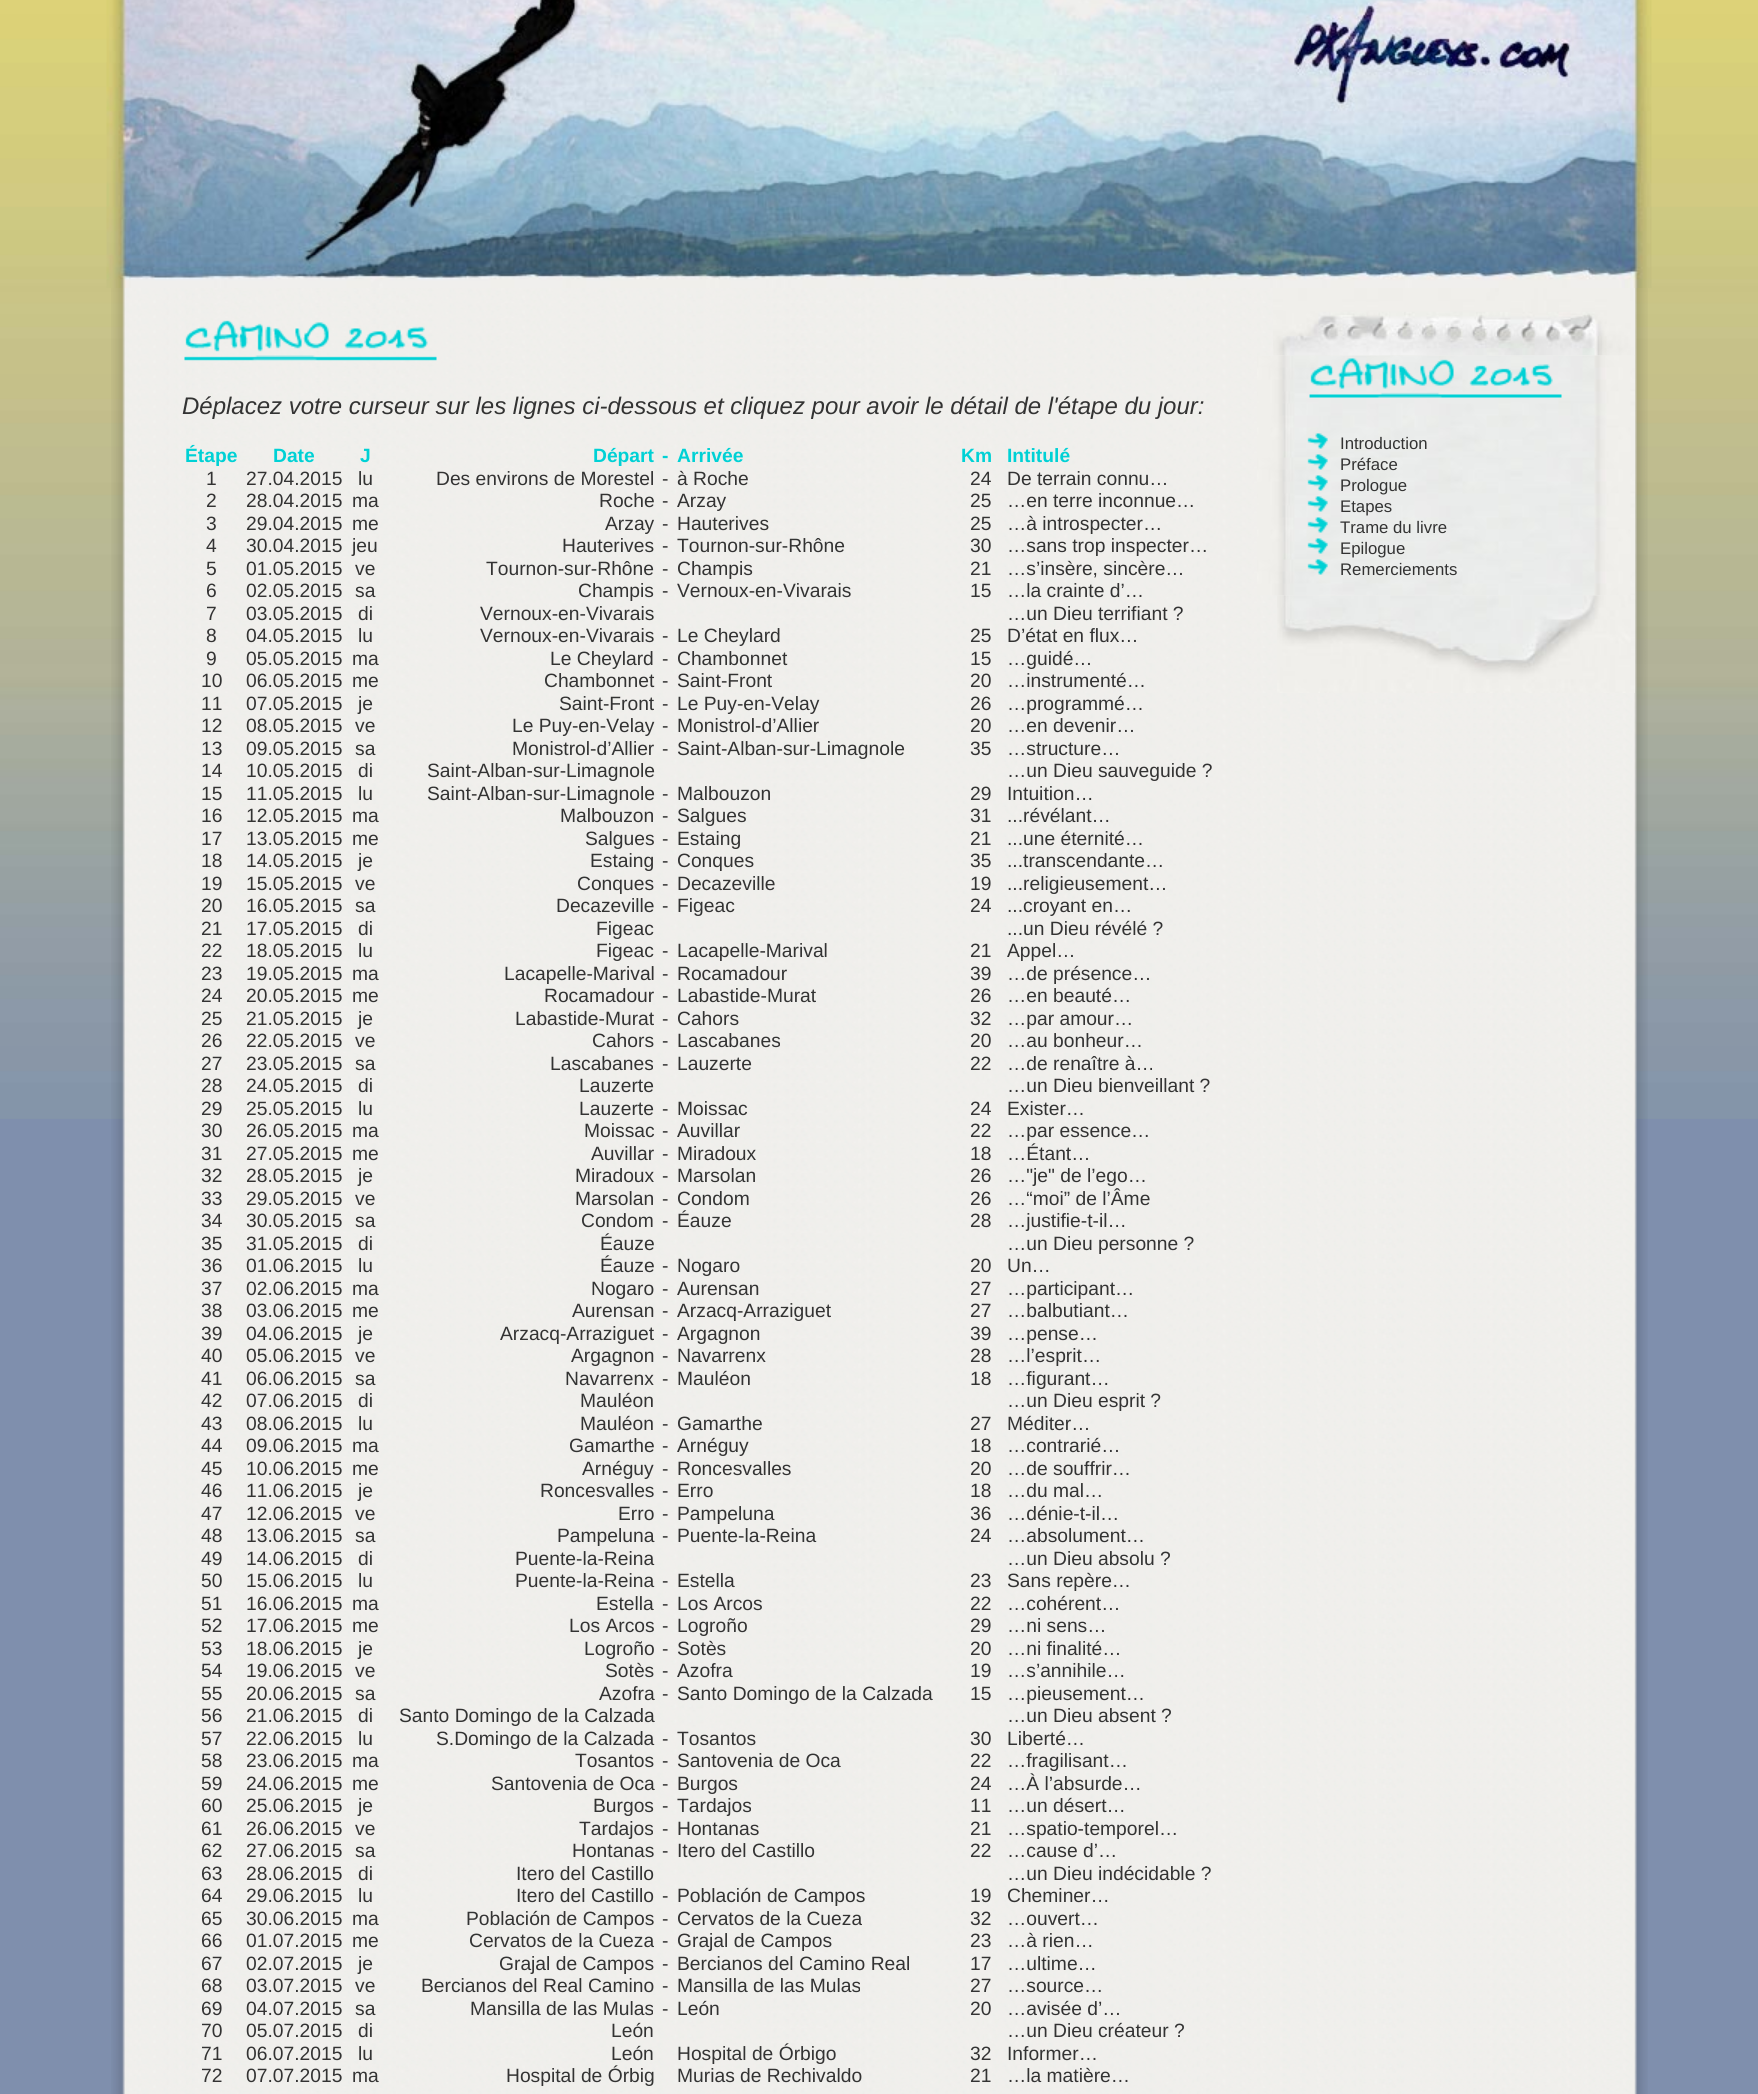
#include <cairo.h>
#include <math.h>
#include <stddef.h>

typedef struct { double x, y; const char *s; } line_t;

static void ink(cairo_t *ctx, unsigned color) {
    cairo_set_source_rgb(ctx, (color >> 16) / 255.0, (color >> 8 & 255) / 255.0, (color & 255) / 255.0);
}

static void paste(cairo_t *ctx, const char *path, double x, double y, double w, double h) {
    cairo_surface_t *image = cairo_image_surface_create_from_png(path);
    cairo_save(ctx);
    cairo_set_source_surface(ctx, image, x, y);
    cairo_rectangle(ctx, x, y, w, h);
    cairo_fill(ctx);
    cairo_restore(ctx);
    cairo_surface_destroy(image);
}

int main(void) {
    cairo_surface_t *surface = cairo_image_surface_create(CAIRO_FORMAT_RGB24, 1758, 2094);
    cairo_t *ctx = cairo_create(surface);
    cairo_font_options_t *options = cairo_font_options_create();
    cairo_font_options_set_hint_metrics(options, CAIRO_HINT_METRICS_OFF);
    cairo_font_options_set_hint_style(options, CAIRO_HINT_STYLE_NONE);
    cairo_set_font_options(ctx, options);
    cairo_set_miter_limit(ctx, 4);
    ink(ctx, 0x7F8FAD);
    cairo_paint(ctx);
    paste(ctx, "media/1.png", 0, 0, 1758, 1119);
    paste(ctx, "media/2.png", 106, 0, 1546, 288);
    paste(ctx, "media/3.png", 111, 288, 1537, 1806);
    paste(ctx, "media/4.png", 184, 320, 253, 41);
    cairo_select_font_face(ctx, "Liberation Sans", CAIRO_FONT_SLANT_ITALIC, CAIRO_FONT_WEIGHT_NORMAL);
    cairo_set_font_size(ctx, 24);
    ink(ctx, 0x333333);
    cairo_move_to(ctx, 182, 414);
    cairo_show_text(ctx, "Déplacez votre curseur sur les lignes ci-dessous et cliquez pour avoir le détail de l'étape du jour:");
    cairo_select_font_face(ctx, "Liberation Sans", CAIRO_FONT_SLANT_NORMAL, CAIRO_FONT_WEIGHT_BOLD);
    cairo_set_font_size(ctx, 19.25);
    ink(ctx, 0x00D1D5);
    {
        static const line_t items[] = {
            {185, 462, "Étape"},
            {273, 462, "Date"},
            {360, 462, "J"},
            {593, 462, "Départ"},
            {662, 462, "-"},
            {677, 462, "Arrivée"},
            {961, 462, "Km"},
            {1007, 462, "Intitulé"},
        };
        for (size_t i = 0; i < sizeof items / sizeof *items; i++) {
            cairo_move_to(ctx, items[i].x, items[i].y);
            cairo_show_text(ctx, items[i].s);
        }
    }
    cairo_select_font_face(ctx, "Liberation Sans", CAIRO_FONT_SLANT_NORMAL, CAIRO_FONT_WEIGHT_NORMAL);
    ink(ctx, 0x333333);
    {
        static const line_t items[] = {
            {206, 485, "1"},
            {246, 485, "27.04.2015"},
            {358, 485, "lu"},
            {436, 485, "Des environs de Morestel"},
            {662, 485, "-"},
            {677, 485, "à Roche"},
            {970, 485, "24"},
            {1007, 485, "De terrain connu…"},
            {206, 507, "2"},
            {246, 507, "28.04.2015"},
            {352, 507, "ma"},
            {599, 507, "Roche"},
            {662, 507, "-"},
            {677, 507, "Arzay"},
            {970, 507, "25"},
            {1007, 507, "…en terre inconnue…"},
            {206, 530, "3"},
            {246, 530, "29.04.2015"},
            {352, 530, "me"},
            {605, 530, "Arzay"},
            {662, 530, "-"},
            {677, 530, "Hauterives"},
            {970, 530, "25"},
            {1007, 530, "…à introspecter…"},
            {206, 552, "4"},
            {246, 552, "30.04.2015"},
            {352, 552, "jeu"},
            {562, 552, "Hauterives"},
            {662, 552, "-"},
            {677, 552, "Tournon-sur-Rhône"},
            {970, 552, "30"},
            {1007, 552, "…sans trop inspecter…"},
            {206, 575, "5"},
            {246, 575, "01.05.2015"},
            {355, 575, "ve"},
            {486, 575, "Tournon-sur-Rhône"},
            {662, 575, "-"},
            {677, 575, "Champis"},
            {970, 575, "21"},
            {1007, 575, "…s’insère, sincère…"},
            {206, 597, "6"},
            {246, 597, "02.05.2015"},
            {355, 597, "sa"},
            {578, 597, "Champis"},
            {662, 597, "-"},
            {677, 597, "Vernoux-en-Vivarais"},
            {970, 597, "15"},
            {1007, 597, "…la crainte d’…"},
            {206, 620, "7"},
            {246, 620, "03.05.2015"},
            {358, 620, "di"},
            {480, 620, "Vernoux-en-Vivarais"},
            {1007, 620, "…un Dieu terrifiant ?"},
            {206, 642, "8"},
            {246, 642, "04.05.2015"},
            {358, 642, "lu"},
            {480, 642, "Vernoux-en-Vivarais"},
            {662, 642, "-"},
            {677, 642, "Le Cheylard"},
            {970, 642, "25"},
            {1007, 642, "D’état en flux…"},
            {206, 665, "9"},
            {246, 665, "05.05.2015"},
            {352, 665, "ma"},
            {550, 665, "Le Cheylard"},
            {662, 665, "-"},
            {677, 665, "Chambonnet"},
            {970, 665, "15"},
            {1007, 665, "…guidé…"},
            {201, 687, "10"},
            {246, 687, "06.05.2015"},
            {352, 687, "me"},
            {544, 687, "Chambonnet"},
            {662, 687, "-"},
            {677, 687, "Saint-Front"},
            {970, 687, "20"},
            {1007, 687, "…instrumenté…"},
            {201, 710, "11"},
            {246, 710, "07.05.2015"},
            {358, 710, "je"},
            {559, 710, "Saint-Front"},
            {662, 710, "-"},
            {677, 710, "Le Puy-en-Velay"},
            {970, 710, "26"},
            {1007, 710, "…programmé…"},
            {201, 732, "12"},
            {246, 732, "08.05.2015"},
            {355, 732, "ve"},
            {512, 732, "Le Puy-en-Velay"},
            {662, 732, "-"},
            {677, 732, "Monistrol-d’Allier"},
            {970, 732, "20"},
            {1007, 732, "…en devenir…"},
            {201, 755, "13"},
            {246, 755, "09.05.2015"},
            {355, 755, "sa"},
            {512, 755, "Monistrol-d’Allier"},
            {662, 755, "-"},
            {677, 755, "Saint-Alban-sur-Limagnole"},
            {970, 755, "35"},
            {1007, 755, "…structure…"},
            {201, 777, "14"},
            {246, 777, "10.05.2015"},
            {358, 777, "di"},
            {427, 777, "Saint-Alban-sur-Limagnole"},
            {1007, 777, "…un Dieu sauveguide ?"},
            {201, 800, "15"},
            {246, 800, "11.05.2015"},
            {358, 800, "lu"},
            {427, 800, "Saint-Alban-sur-Limagnole"},
            {662, 800, "-"},
            {677, 800, "Malbouzon"},
            {970, 800, "29"},
            {1007, 800, "Intuition…"},
            {201, 822, "16"},
            {246, 822, "12.05.2015"},
            {352, 822, "ma"},
            {560, 822, "Malbouzon"},
            {662, 822, "-"},
            {677, 822, "Salgues"},
            {970, 822, "31"},
            {1007, 822, "...révélant…"},
            {201, 845, "17"},
            {246, 845, "13.05.2015"},
            {352, 845, "me"},
            {585, 845, "Salgues"},
            {662, 845, "-"},
            {677, 845, "Estaing"},
            {970, 845, "21"},
            {1007, 845, "...une éternité…"},
            {201, 867, "18"},
            {246, 867, "14.05.2015"},
            {358, 867, "je"},
            {590, 867, "Estaing"},
            {662, 867, "-"},
            {677, 867, "Conques"},
            {970, 867, "35"},
            {1007, 867, "...transcendante…"},
            {201, 890, "19"},
            {246, 890, "15.05.2015"},
            {355, 890, "ve"},
            {577, 890, "Conques"},
            {662, 890, "-"},
            {677, 890, "Decazeville"},
            {970, 890, "19"},
            {1007, 890, "...religieusement…"},
            {201, 912, "20"},
            {246, 912, "16.05.2015"},
            {355, 912, "sa"},
            {556, 912, "Decazeville"},
            {662, 912, "-"},
            {677, 912, "Figeac"},
            {970, 912, "24"},
            {1007, 912, "...croyant en…"},
            {201, 935, "21"},
            {246, 935, "17.05.2015"},
            {358, 935, "di"},
            {596, 935, "Figeac"},
            {1007, 935, "...un Dieu révélé ?"},
            {201, 957, "22"},
            {246, 957, "18.05.2015"},
            {358, 957, "lu"},
            {596, 957, "Figeac"},
            {662, 957, "-"},
            {677, 957, "Lacapelle-Marival"},
            {970, 957, "21"},
            {1007, 957, "Appel…"},
            {201, 980, "23"},
            {246, 980, "19.05.2015"},
            {352, 980, "ma"},
            {504, 980, "Lacapelle-Marival"},
            {662, 980, "-"},
            {677, 980, "Rocamadour"},
            {970, 980, "39"},
            {1007, 980, "…de présence…"},
            {201, 1002, "24"},
            {246, 1002, "20.05.2015"},
            {352, 1002, "me"},
            {544, 1002, "Rocamadour"},
            {662, 1002, "-"},
            {677, 1002, "Labastide-Murat"},
            {970, 1002, "26"},
            {1007, 1002, "…en beauté…"},
            {201, 1025, "25"},
            {246, 1025, "21.05.2015"},
            {358, 1025, "je"},
            {515, 1025, "Labastide-Murat"},
            {662, 1025, "-"},
            {677, 1025, "Cahors"},
            {970, 1025, "32"},
            {1007, 1025, "…par amour…"},
            {201, 1047, "26"},
            {246, 1047, "22.05.2015"},
            {355, 1047, "ve"},
            {592, 1047, "Cahors"},
            {662, 1047, "-"},
            {677, 1047, "Lascabanes"},
            {970, 1047, "20"},
            {1007, 1047, "…au bonheur…"},
            {201, 1070, "27"},
            {246, 1070, "23.05.2015"},
            {355, 1070, "sa"},
            {550, 1070, "Lascabanes"},
            {662, 1070, "-"},
            {677, 1070, "Lauzerte"},
            {970, 1070, "22"},
            {1007, 1070, "…de renaître à…"},
            {201, 1092, "28"},
            {246, 1092, "24.05.2015"},
            {358, 1092, "di"},
            {579, 1092, "Lauzerte"},
            {1007, 1092, "…un Dieu bienveillant ?"},
            {201, 1115, "29"},
            {246, 1115, "25.05.2015"},
            {358, 1115, "lu"},
            {579, 1115, "Lauzerte"},
            {662, 1115, "-"},
            {677, 1115, "Moissac"},
            {970, 1115, "24"},
            {1007, 1115, "Exister…"},
            {201, 1137, "30"},
            {246, 1137, "26.05.2015"},
            {352, 1137, "ma"},
            {584, 1137, "Moissac"},
            {662, 1137, "-"},
            {677, 1137, "Auvillar"},
            {970, 1137, "22"},
            {1007, 1137, "…par essence…"},
            {201, 1160, "31"},
            {246, 1160, "27.05.2015"},
            {352, 1160, "me"},
            {591, 1160, "Auvillar"},
            {662, 1160, "-"},
            {677, 1160, "Miradoux"},
            {970, 1160, "18"},
            {1007, 1160, "…Étant…"},
            {201, 1182, "32"},
            {246, 1182, "28.05.2015"},
            {358, 1182, "je"},
            {575, 1182, "Miradoux"},
            {662, 1182, "-"},
            {677, 1182, "Marsolan"},
            {970, 1182, "26"},
            {1007, 1182, "…\"je\" de l’ego…"},
            {201, 1205, "33"},
            {246, 1205, "29.05.2015"},
            {355, 1205, "ve"},
            {575, 1205, "Marsolan"},
            {662, 1205, "-"},
            {677, 1205, "Condom"},
            {970, 1205, "26"},
            {1007, 1205, "…“moi” de l’Âme"},
            {201, 1227, "34"},
            {246, 1227, "30.05.2015"},
            {355, 1227, "sa"},
            {581, 1227, "Condom"},
            {662, 1227, "-"},
            {677, 1227, "Éauze"},
            {970, 1227, "28"},
            {1007, 1227, "…justifie-t-il…"},
            {201, 1250, "35"},
            {246, 1250, "31.05.2015"},
            {358, 1250, "di"},
            {600, 1250, "Éauze"},
            {1007, 1250, "…un Dieu personne ?"},
            {201, 1272, "36"},
            {246, 1272, "01.06.2015"},
            {358, 1272, "lu"},
            {600, 1272, "Éauze"},
            {662, 1272, "-"},
            {677, 1272, "Nogaro"},
            {970, 1272, "20"},
            {1007, 1272, "Un…"},
            {201, 1295, "37"},
            {246, 1295, "02.06.2015"},
            {352, 1295, "ma"},
            {591, 1295, "Nogaro"},
            {662, 1295, "-"},
            {677, 1295, "Aurensan"},
            {970, 1295, "27"},
            {1007, 1295, "…participant…"},
            {201, 1317, "38"},
            {246, 1317, "03.06.2015"},
            {352, 1317, "me"},
            {572, 1317, "Aurensan"},
            {662, 1317, "-"},
            {677, 1317, "Arzacq-Arraziguet"},
            {970, 1317, "27"},
            {1007, 1317, "…balbutiant…"},
            {201, 1340, "39"},
            {246, 1340, "04.06.2015"},
            {358, 1340, "je"},
            {500, 1340, "Arzacq-Arraziguet"},
            {662, 1340, "-"},
            {677, 1340, "Argagnon"},
            {970, 1340, "39"},
            {1007, 1340, "…pense…"},
            {201, 1362, "40"},
            {246, 1362, "05.06.2015"},
            {355, 1362, "ve"},
            {571, 1362, "Argagnon"},
            {662, 1362, "-"},
            {677, 1362, "Navarrenx"},
            {970, 1362, "28"},
            {1007, 1362, "…l’esprit…"},
            {201, 1385, "41"},
            {246, 1385, "06.06.2015"},
            {355, 1385, "sa"},
            {565, 1385, "Navarrenx"},
            {662, 1385, "-"},
            {677, 1385, "Mauléon"},
            {970, 1385, "18"},
            {1007, 1385, "…figurant…"},
            {201, 1407, "42"},
            {246, 1407, "07.06.2015"},
            {358, 1407, "di"},
            {580, 1407, "Mauléon"},
            {1007, 1407, "…un Dieu esprit ?"},
            {201, 1430, "43"},
            {246, 1430, "08.06.2015"},
            {358, 1430, "lu"},
            {580, 1430, "Mauléon"},
            {662, 1430, "-"},
            {677, 1430, "Gamarthe"},
            {970, 1430, "27"},
            {1007, 1430, "Méditer…"},
            {201, 1452, "44"},
            {246, 1452, "09.06.2015"},
            {352, 1452, "ma"},
            {569, 1452, "Gamarthe"},
            {662, 1452, "-"},
            {677, 1452, "Arnéguy"},
            {970, 1452, "18"},
            {1007, 1452, "…contrarié…"},
            {201, 1475, "45"},
            {246, 1475, "10.06.2015"},
            {352, 1475, "me"},
            {582, 1475, "Arnéguy"},
            {662, 1475, "-"},
            {677, 1475, "Roncesvalles"},
            {970, 1475, "20"},
            {1007, 1475, "…de souffrir…"},
            {201, 1497, "46"},
            {246, 1497, "11.06.2015"},
            {358, 1497, "je"},
            {540, 1497, "Roncesvalles"},
            {662, 1497, "-"},
            {677, 1497, "Erro"},
            {970, 1497, "18"},
            {1007, 1497, "…du mal…"},
            {201, 1520, "47"},
            {246, 1520, "12.06.2015"},
            {355, 1520, "ve"},
            {618, 1520, "Erro"},
            {662, 1520, "-"},
            {677, 1520, "Pampeluna"},
            {970, 1520, "36"},
            {1007, 1520, "…dénie-t-il…"},
            {201, 1542, "48"},
            {246, 1542, "13.06.2015"},
            {355, 1542, "sa"},
            {557, 1542, "Pampeluna"},
            {662, 1542, "-"},
            {677, 1542, "Puente-la-Reina"},
            {970, 1542, "24"},
            {1007, 1542, "…absolument…"},
            {201, 1565, "49"},
            {246, 1565, "14.06.2015"},
            {358, 1565, "di"},
            {515, 1565, "Puente-la-Reina"},
            {1007, 1565, "…un Dieu absolu ?"},
            {201, 1587, "50"},
            {246, 1587, "15.06.2015"},
            {358, 1587, "lu"},
            {515, 1587, "Puente-la-Reina"},
            {662, 1587, "-"},
            {677, 1587, "Estella"},
            {970, 1587, "23"},
            {1007, 1587, "Sans repère…"},
            {201, 1610, "51"},
            {246, 1610, "16.06.2015"},
            {352, 1610, "ma"},
            {596, 1610, "Estella"},
            {662, 1610, "-"},
            {677, 1610, "Los Arcos"},
            {970, 1610, "22"},
            {1007, 1610, "…cohérent…"},
            {201, 1632, "52"},
            {246, 1632, "17.06.2015"},
            {352, 1632, "me"},
            {569, 1632, "Los Arcos"},
            {662, 1632, "-"},
            {677, 1632, "Logroño"},
            {970, 1632, "29"},
            {1007, 1632, "…ni sens…"},
            {201, 1655, "53"},
            {246, 1655, "18.06.2015"},
            {358, 1655, "je"},
            {584, 1655, "Logroño"},
            {662, 1655, "-"},
            {677, 1655, "Sotès"},
            {970, 1655, "20"},
            {1007, 1655, "…ni finalité…"},
            {201, 1677, "54"},
            {246, 1677, "19.06.2015"},
            {355, 1677, "ve"},
            {605, 1677, "Sotès"},
            {662, 1677, "-"},
            {677, 1677, "Azofra"},
            {970, 1677, "19"},
            {1007, 1677, "…s’annihile…"},
            {201, 1700, "55"},
            {246, 1700, "20.06.2015"},
            {355, 1700, "sa"},
            {599, 1700, "Azofra"},
            {662, 1700, "-"},
            {677, 1700, "Santo Domingo de la Calzada"},
            {970, 1700, "15"},
            {1007, 1700, "…pieusement…"},
            {201, 1722, "56"},
            {246, 1722, "21.06.2015"},
            {358, 1722, "di"},
            {399, 1722, "Santo Domingo de la Calzada"},
            {1007, 1722, "…un Dieu absent ?"},
            {201, 1745, "57"},
            {246, 1745, "22.06.2015"},
            {358, 1745, "lu"},
            {436, 1745, "S.Domingo de la Calzada"},
            {662, 1745, "-"},
            {677, 1745, "Tosantos"},
            {970, 1745, "30"},
            {1007, 1745, "Liberté…"},
            {201, 1767, "58"},
            {246, 1767, "23.06.2015"},
            {352, 1767, "ma"},
            {575, 1767, "Tosantos"},
            {662, 1767, "-"},
            {677, 1767, "Santovenia de Oca"},
            {970, 1767, "22"},
            {1007, 1767, "…fragilisant…"},
            {201, 1790, "59"},
            {246, 1790, "24.06.2015"},
            {352, 1790, "me"},
            {491, 1790, "Santovenia de Oca"},
            {662, 1790, "-"},
            {677, 1790, "Burgos"},
            {970, 1790, "24"},
            {1007, 1790, "…À l’absurde…"},
            {201, 1812, "60"},
            {246, 1812, "25.06.2015"},
            {358, 1812, "je"},
            {593, 1812, "Burgos"},
            {662, 1812, "-"},
            {677, 1812, "Tardajos"},
            {970, 1812, "11"},
            {1007, 1812, "…un désert…"},
            {201, 1835, "61"},
            {246, 1835, "26.06.2015"},
            {355, 1835, "ve"},
            {579, 1835, "Tardajos"},
            {662, 1835, "-"},
            {677, 1835, "Hontanas"},
            {970, 1835, "21"},
            {1007, 1835, "…spatio-temporel…"},
            {201, 1857, "62"},
            {246, 1857, "27.06.2015"},
            {355, 1857, "sa"},
            {572, 1857, "Hontanas"},
            {662, 1857, "-"},
            {677, 1857, "Itero del Castillo"},
            {970, 1857, "22"},
            {1007, 1857, "…cause d’…"},
            {201, 1880, "63"},
            {246, 1880, "28.06.2015"},
            {358, 1880, "di"},
            {516, 1880, "Itero del Castillo"},
            {1007, 1880, "…un Dieu indécidable ?"},
            {201, 1902, "64"},
            {246, 1902, "29.06.2015"},
            {358, 1902, "lu"},
            {516, 1902, "Itero del Castillo"},
            {662, 1902, "-"},
            {677, 1902, "Población de Campos"},
            {970, 1902, "19"},
            {1007, 1902, "Cheminer…"},
            {201, 1925, "65"},
            {246, 1925, "30.06.2015"},
            {352, 1925, "ma"},
            {466, 1925, "Población de Campos"},
            {662, 1925, "-"},
            {677, 1925, "Cervatos de la Cueza"},
            {970, 1925, "32"},
            {1007, 1925, "…ouvert…"},
            {201, 1947, "66"},
            {246, 1947, "01.07.2015"},
            {352, 1947, "me"},
            {469, 1947, "Cervatos de la Cueza"},
            {662, 1947, "-"},
            {677, 1947, "Grajal de Campos"},
            {970, 1947, "23"},
            {1007, 1947, "…à rien…"},
            {201, 1970, "67"},
            {246, 1970, "02.07.2015"},
            {358, 1970, "je"},
            {499, 1970, "Grajal de Campos"},
            {662, 1970, "-"},
            {677, 1970, "Bercianos del Camino Real"},
            {970, 1970, "17"},
            {1007, 1970, "…ultime…"},
            {201, 1992, "68"},
            {246, 1992, "03.07.2015"},
            {355, 1992, "ve"},
            {421, 1992, "Bercianos del Real Camino"},
            {662, 1992, "-"},
            {677, 1992, "Mansilla de las Mulas"},
            {970, 1992, "27"},
            {1007, 1992, "…source…"},
            {201, 2015, "69"},
            {246, 2015, "04.07.2015"},
            {355, 2015, "sa"},
            {470, 2015, "Mansilla de las Mulas"},
            {662, 2015, "-"},
            {677, 2015, "León"},
            {970, 2015, "20"},
            {1007, 2015, "…avisée d’…"},
            {201, 2037, "70"},
            {246, 2037, "05.07.2015"},
            {358, 2037, "di"},
            {611, 2037, "León"},
            {1007, 2037, "…un Dieu créateur ?"},
            {201, 2060, "71"},
            {246, 2060, "06.07.2015"},
            {358, 2060, "lu"},
            {611, 2060, "León"},
            {677, 2060, "Hospital de Órbigo"},
            {970, 2060, "32"},
            {1007, 2060, "Informer…"},
            {201, 2082, "72"},
            {246, 2082, "07.07.2015"},
            {352, 2082, "ma"},
            {506, 2082, "Hospital de Órbig"},
            {677, 2082, "Murias de Rechivaldo"},
            {970, 2082, "21"},
            {1007, 2082, "…la matière…"},
        };
        for (size_t i = 0; i < sizeof items / sizeof *items; i++) {
            cairo_move_to(ctx, items[i].x, items[i].y);
            cairo_show_text(ctx, items[i].s);
        }
    }
    paste(ctx, "media/5.png", 1273, 288, 362, 68);
    paste(ctx, "media/6.png", 1257, 355, 378, 241);
    paste(ctx, "media/7.png", 1309, 358, 253, 40);
    paste(ctx, "media/8.png", 1307, 433, 21, 16);
    cairo_set_font_size(ctx, 16.75);
    cairo_move_to(ctx, 1340, 449);
    cairo_show_text(ctx, "Introduction");
    paste(ctx, "media/9.png", 1307, 454, 21, 16);
    cairo_move_to(ctx, 1340, 470);
    cairo_show_text(ctx, "Préface");
    paste(ctx, "media/10.png", 1307, 475, 21, 16);
    cairo_move_to(ctx, 1340, 491);
    cairo_show_text(ctx, "Prologue");
    paste(ctx, "media/11.png", 1307, 496, 21, 16);
    cairo_move_to(ctx, 1340, 512);
    cairo_show_text(ctx, "Etapes");
    paste(ctx, "media/12.png", 1307, 517, 21, 16);
    cairo_move_to(ctx, 1340, 533);
    cairo_show_text(ctx, "Trame du livre");
    paste(ctx, "media/13.png", 1307, 538, 21, 16);
    cairo_move_to(ctx, 1340, 554);
    cairo_show_text(ctx, "Epilogue");
    paste(ctx, "media/14.png", 1307, 559, 21, 16);
    cairo_move_to(ctx, 1340, 575);
    cairo_show_text(ctx, "Remerciements");
    paste(ctx, "media/15.png", 1277, 595, 358, 98);
    cairo_surface_write_to_png(surface, "image.png");
    cairo_font_options_destroy(options);
    cairo_destroy(ctx);
    cairo_surface_destroy(surface);
    return 0;
}
